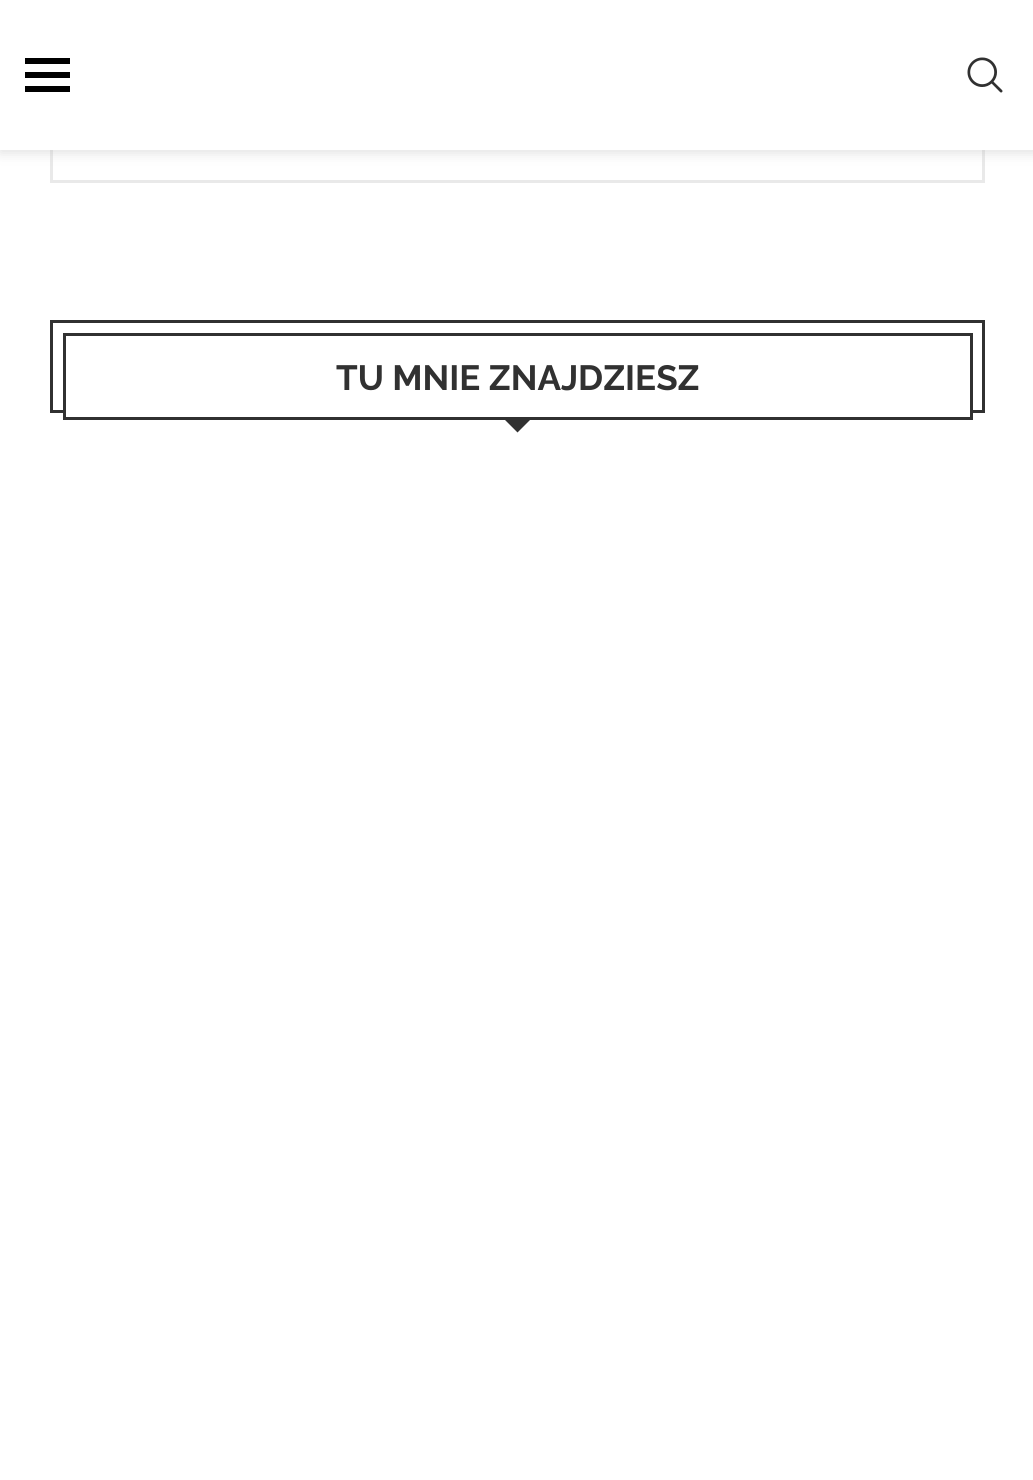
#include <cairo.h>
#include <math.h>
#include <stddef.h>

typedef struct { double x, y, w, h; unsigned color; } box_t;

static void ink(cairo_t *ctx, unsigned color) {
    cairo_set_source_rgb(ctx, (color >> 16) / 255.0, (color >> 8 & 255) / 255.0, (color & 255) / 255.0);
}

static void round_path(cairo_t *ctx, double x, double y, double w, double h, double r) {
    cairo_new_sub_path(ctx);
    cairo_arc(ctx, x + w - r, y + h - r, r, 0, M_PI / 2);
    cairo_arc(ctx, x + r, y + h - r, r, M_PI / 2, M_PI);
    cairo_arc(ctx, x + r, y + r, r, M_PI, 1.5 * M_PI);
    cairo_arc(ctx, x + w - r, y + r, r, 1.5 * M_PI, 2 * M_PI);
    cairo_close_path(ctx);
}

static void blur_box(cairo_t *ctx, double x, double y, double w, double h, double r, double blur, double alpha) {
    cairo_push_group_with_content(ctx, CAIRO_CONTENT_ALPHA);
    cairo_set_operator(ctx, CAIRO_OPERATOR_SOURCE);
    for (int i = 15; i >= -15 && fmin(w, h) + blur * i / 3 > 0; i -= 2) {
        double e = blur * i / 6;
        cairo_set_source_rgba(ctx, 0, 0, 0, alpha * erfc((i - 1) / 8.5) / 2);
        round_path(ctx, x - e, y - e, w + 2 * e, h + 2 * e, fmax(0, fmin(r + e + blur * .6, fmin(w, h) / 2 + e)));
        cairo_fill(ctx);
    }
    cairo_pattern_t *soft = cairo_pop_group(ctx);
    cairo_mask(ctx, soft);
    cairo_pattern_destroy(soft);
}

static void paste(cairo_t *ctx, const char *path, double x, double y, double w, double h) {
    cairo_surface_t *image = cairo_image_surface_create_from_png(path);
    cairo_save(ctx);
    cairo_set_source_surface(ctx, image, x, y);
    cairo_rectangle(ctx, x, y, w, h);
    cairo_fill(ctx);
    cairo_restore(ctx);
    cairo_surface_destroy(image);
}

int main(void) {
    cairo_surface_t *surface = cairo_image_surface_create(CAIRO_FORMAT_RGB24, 1033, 1480);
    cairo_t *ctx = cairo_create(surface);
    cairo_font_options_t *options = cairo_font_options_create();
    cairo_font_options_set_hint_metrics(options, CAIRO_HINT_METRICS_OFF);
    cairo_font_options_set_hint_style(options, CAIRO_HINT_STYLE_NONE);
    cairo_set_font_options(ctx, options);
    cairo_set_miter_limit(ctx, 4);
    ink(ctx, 0xFFFFFF);
    cairo_paint(ctx);
    cairo_rectangle(ctx, 51.5, 74.5, 932, 107);
    ink(ctx, 0xE9E9E9);
    cairo_set_line_width(ctx, 3);
    cairo_stroke(ctx);
    ink(ctx, 0xBEBEBE);
    blur_box(ctx, 0, 3, 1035, 150, 0, 6, 0.46);
    {
        static const box_t items[] = {
            {0, 0, 1033, 150, 0xFFFFFF},
            {25, 58, 45, 6, 0x000000},
            {25, 72, 45, 6, 0x000000},
            {25, 86, 45, 6, 0x000000},
        };
        for (size_t i = 0; i < sizeof items / sizeof *items; i++) {
            ink(ctx, items[i].color);
            cairo_rectangle(ctx, items[i].x, items[i].y, items[i].w, items[i].h);
            cairo_fill(ctx);
        }
    }
    paste(ctx, "media/1.png", 967, 57, 36, 36);
    cairo_rectangle(ctx, 51.5, 321.5, 932, 90);
    ink(ctx, 0x313131);
    cairo_stroke(ctx);
    ink(ctx, 0xFFFFFF);
    cairo_rectangle(ctx, 66, 410, 904, 3);
    cairo_fill(ctx);
    cairo_rectangle(ctx, 64.5, 334.5, 907, 84);
    ink(ctx, 0x313131);
    cairo_stroke(ctx);
    cairo_select_font_face(ctx, "Raleway Thin", CAIRO_FONT_SLANT_NORMAL, CAIRO_FONT_WEIGHT_NORMAL);
    cairo_set_font_size(ctx, 35);
    cairo_move_to(ctx, 336, 390);
    cairo_show_text(ctx, "TU MNIE ZNAJDZIESZ");
    cairo_new_path(ctx);
    cairo_move_to(ctx, 502.5, 417.5);
    cairo_line_to(ctx, 532.5, 417.5);
    cairo_line_to(ctx, 517.5, 432.5);
    cairo_close_path(ctx);
    cairo_fill(ctx);
    cairo_surface_write_to_png(surface, "image.png");
    cairo_font_options_destroy(options);
    cairo_destroy(ctx);
    cairo_surface_destroy(surface);
    return 0;
}
